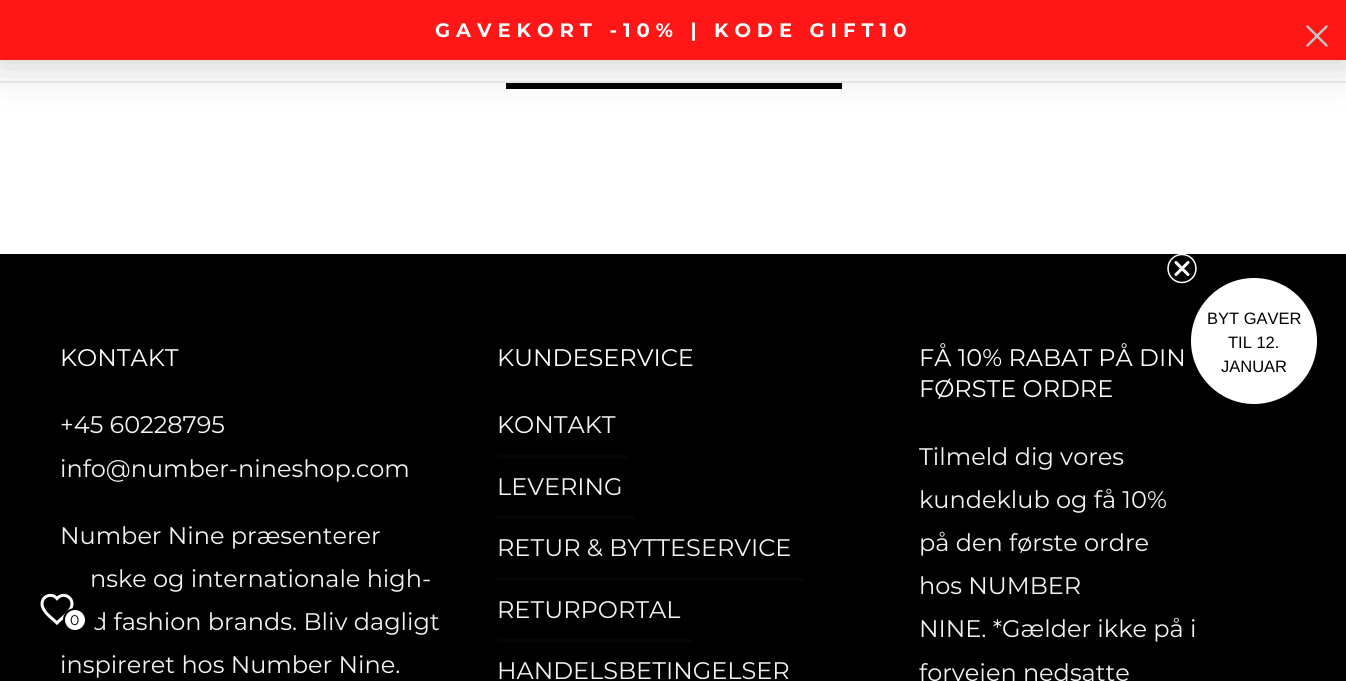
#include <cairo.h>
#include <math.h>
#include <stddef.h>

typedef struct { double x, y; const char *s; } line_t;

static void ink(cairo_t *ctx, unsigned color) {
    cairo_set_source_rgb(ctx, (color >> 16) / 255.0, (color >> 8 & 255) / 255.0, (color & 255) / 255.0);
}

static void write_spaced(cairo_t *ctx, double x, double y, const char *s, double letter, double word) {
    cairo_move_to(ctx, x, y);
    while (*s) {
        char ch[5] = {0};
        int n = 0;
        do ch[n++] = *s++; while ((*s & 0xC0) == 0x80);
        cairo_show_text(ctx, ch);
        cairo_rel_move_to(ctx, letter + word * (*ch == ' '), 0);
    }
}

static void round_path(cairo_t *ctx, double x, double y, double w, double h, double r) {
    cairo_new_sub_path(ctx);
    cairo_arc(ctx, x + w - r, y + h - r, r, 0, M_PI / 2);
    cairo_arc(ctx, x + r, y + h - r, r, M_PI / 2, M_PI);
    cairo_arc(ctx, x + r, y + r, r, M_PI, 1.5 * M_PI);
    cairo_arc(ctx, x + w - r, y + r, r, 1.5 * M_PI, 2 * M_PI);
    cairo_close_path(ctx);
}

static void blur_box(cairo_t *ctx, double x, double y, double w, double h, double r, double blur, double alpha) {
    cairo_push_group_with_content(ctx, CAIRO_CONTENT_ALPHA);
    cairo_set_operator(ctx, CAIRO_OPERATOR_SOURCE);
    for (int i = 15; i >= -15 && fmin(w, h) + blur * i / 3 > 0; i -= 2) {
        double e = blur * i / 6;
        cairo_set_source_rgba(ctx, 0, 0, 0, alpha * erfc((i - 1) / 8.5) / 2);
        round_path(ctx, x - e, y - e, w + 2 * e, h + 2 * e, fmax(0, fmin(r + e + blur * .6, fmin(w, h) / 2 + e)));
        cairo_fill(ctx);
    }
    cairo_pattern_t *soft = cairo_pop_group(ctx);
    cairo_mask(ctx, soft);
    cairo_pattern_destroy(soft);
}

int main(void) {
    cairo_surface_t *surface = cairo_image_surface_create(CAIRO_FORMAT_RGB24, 1346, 681);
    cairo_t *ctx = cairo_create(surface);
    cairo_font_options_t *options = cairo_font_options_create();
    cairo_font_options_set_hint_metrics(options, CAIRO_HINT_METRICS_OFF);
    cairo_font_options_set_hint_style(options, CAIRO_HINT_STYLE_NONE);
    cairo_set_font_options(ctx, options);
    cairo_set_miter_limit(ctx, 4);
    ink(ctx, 0xFFFFFF);
    cairo_paint(ctx);
    ink(ctx, 0xEBEBEB);
    cairo_rectangle(ctx, 0, 81, 1346, 2);
    cairo_fill(ctx);
    ink(ctx, 0x000000);
    cairo_rectangle(ctx, 506, 83, 336, 6);
    cairo_fill(ctx);
    ink(ctx, 0x272727);
    blur_box(ctx, 0, 0, 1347, 60, 0, 22.5, 0.27);
    ink(ctx, 0xFF1616);
    cairo_rectangle(ctx, 0, 0, 1346, 60);
    cairo_fill(ctx);
    cairo_select_font_face(ctx, "Montserrat", CAIRO_FONT_SLANT_NORMAL, CAIRO_FONT_WEIGHT_BOLD);
    cairo_set_font_size(ctx, 19.5);
    ink(ctx, 0xFFFFFF);
    write_spaced(ctx, 435, 37, "GAVEKORT -10% | KODE GIFT10", 6, 0);
    cairo_new_path(ctx);
    cairo_move_to(ctx, 1307.5, 26.5);
    cairo_line_to(ctx, 1326.5, 45.5);
    cairo_move_to(ctx, 1307.5, 45.5);
    cairo_line_to(ctx, 1326.5, 26.5);
    cairo_close_path(ctx);
    ink(ctx, 0xC7C7C7);
    cairo_set_line_width(ctx, 2.4);
    cairo_set_line_cap(ctx, CAIRO_LINE_CAP_ROUND);
    cairo_set_line_join(ctx, CAIRO_LINE_JOIN_ROUND);
    cairo_stroke(ctx);
    ink(ctx, 0x000000);
    cairo_rectangle(ctx, 0, 254, 1346, 427);
    cairo_fill(ctx);
    cairo_select_font_face(ctx, "Montserrat", CAIRO_FONT_SLANT_NORMAL, CAIRO_FONT_WEIGHT_NORMAL);
    cairo_set_font_size(ctx, 24);
    ink(ctx, 0xFFFFFF);
    cairo_move_to(ctx, 60, 366);
    cairo_show_text(ctx, "KONTAKT");
    ink(ctx, 0xF3F3F3);
    {
        static const line_t items[] = {
            {60, 433, "+45 60228795"},
            {60, 477, "info@number-nineshop.com"},
            {60, 544, "Number Nine præsenterer"},
            {90, 587, "nske og internationale high-"},
            {91, 630, "d fashion brands. Bliv dagligt"},
            {60, 673, "inspireret hos Number Nine."},
        };
        for (size_t i = 0; i < sizeof items / sizeof *items; i++) {
            cairo_move_to(ctx, items[i].x, items[i].y);
            cairo_show_text(ctx, items[i].s);
        }
    }
    ink(ctx, 0xFFFFFF);
    cairo_move_to(ctx, 497, 366);
    cairo_show_text(ctx, "KUNDESERVICE");
    ink(ctx, 0x060606);
    cairo_rectangle(ctx, 497, 455, 130, 3);
    cairo_fill(ctx);
    ink(ctx, 0xF3F3F3);
    cairo_move_to(ctx, 497, 433);
    cairo_show_text(ctx, "KONTAKT");
    ink(ctx, 0x060606);
    cairo_rectangle(ctx, 497, 516, 138, 3);
    cairo_fill(ctx);
    ink(ctx, 0xF3F3F3);
    cairo_move_to(ctx, 497, 495);
    cairo_show_text(ctx, "LEVERING");
    ink(ctx, 0x060606);
    cairo_rectangle(ctx, 497, 578, 307, 3);
    cairo_fill(ctx);
    ink(ctx, 0xF3F3F3);
    cairo_move_to(ctx, 497, 556);
    cairo_show_text(ctx, "RETUR & BYTTESERVICE");
    ink(ctx, 0x060606);
    cairo_rectangle(ctx, 497, 639, 196, 3);
    cairo_fill(ctx);
    ink(ctx, 0xF3F3F3);
    cairo_move_to(ctx, 497, 618);
    cairo_show_text(ctx, "RETURPORTAL");
    cairo_move_to(ctx, 497, 679);
    cairo_show_text(ctx, "HANDELSBETINGELSER");
    ink(ctx, 0xFFFFFF);
    cairo_move_to(ctx, 919, 366);
    cairo_show_text(ctx, "FÅ 10% RABAT PÅ DIN");
    cairo_move_to(ctx, 919, 397);
    cairo_show_text(ctx, "FØRSTE ORDRE");
    ink(ctx, 0xF3F3F3);
    {
        static const line_t items[] = {
            {919, 465, "Tilmeld dig vores"},
            {919, 508, "kundeklub og få 10%"},
            {919, 551, "på den første ordre"},
            {919, 594, "hos NUMBER"},
            {919, 637, "NINE. *Gælder ikke på i"},
            {919, 681, "forvejen nedsatte"},
        };
        for (size_t i = 0; i < sizeof items / sizeof *items; i++) {
            cairo_move_to(ctx, items[i].x, items[i].y);
            cairo_show_text(ctx, items[i].s);
        }
    }
    ink(ctx, 0xFFFFFF);
    cairo_new_path(ctx);
    cairo_arc(ctx, 1254, 341, 63, 0, 2 * M_PI);
    cairo_fill(ctx);
    cairo_arc(ctx, 1182, 268.5, 14, 0, 2 * M_PI);
    cairo_set_line_width(ctx, 1.5);
    cairo_set_line_cap(ctx, CAIRO_LINE_CAP_BUTT);
    cairo_set_line_join(ctx, CAIRO_LINE_JOIN_MITER);
    cairo_stroke(ctx);
    cairo_new_path(ctx);
    cairo_move_to(ctx, 1176, 262.5);
    cairo_line_to(ctx, 1188, 274.5);
    cairo_move_to(ctx, 1176, 274.5);
    cairo_line_to(ctx, 1188, 262.5);
    cairo_close_path(ctx);
    cairo_set_line_width(ctx, 3);
    cairo_set_line_cap(ctx, CAIRO_LINE_CAP_ROUND);
    cairo_set_line_join(ctx, CAIRO_LINE_JOIN_ROUND);
    cairo_stroke(ctx);
    cairo_select_font_face(ctx, "Liberation Sans", CAIRO_FONT_SLANT_NORMAL, CAIRO_FONT_WEIGHT_NORMAL);
    cairo_set_font_size(ctx, 16.5);
    ink(ctx, 0x000000);
    {
        static const line_t items[] = {
            {1207, 324, "BYT GAVER"},
            {1228, 348, "TIL 12."},
            {1221, 372, "JANUAR"},
        };
        for (size_t i = 0; i < sizeof items / sizeof *items; i++) {
            cairo_move_to(ctx, items[i].x, items[i].y);
            cairo_show_text(ctx, items[i].s);
        }
    }
    ink(ctx, 0x000000);
    blur_box(ctx, 15, 570, 84, 84, 42, 3, 0.15);
    ink(ctx, 0x000000);
    cairo_arc(ctx, 57, 609, 40.5, 0, 2 * M_PI);
    cairo_fill_preserve(ctx);
    cairo_set_line_cap(ctx, CAIRO_LINE_CAP_BUTT);
    cairo_set_line_join(ctx, CAIRO_LINE_JOIN_MITER);
    cairo_stroke(ctx);
    cairo_new_path(ctx);
    cairo_move_to(ctx, 57, 623);
    cairo_curve_to(ctx, 52.5, 618.5, 45.5, 614, 43, 608);
    cairo_curve_to(ctx, 38.5, 598, 50.5, 591, 57, 598.5);
    cairo_curve_to(ctx, 63.5, 591, 75.5, 598, 71, 608);
    cairo_curve_to(ctx, 68.5, 613, 63.5, 617, 59, 621);
    cairo_close_path(ctx);
    ink(ctx, 0xFFFFFF);
    cairo_stroke(ctx);
    cairo_arc(ctx, 75, 620, 11, 0, 2 * M_PI);
    cairo_fill_preserve(ctx);
    ink(ctx, 0x000000);
    cairo_set_line_width(ctx, 2);
    cairo_stroke(ctx);
    cairo_select_font_face(ctx, "Montserrat", CAIRO_FONT_SLANT_NORMAL, CAIRO_FONT_WEIGHT_NORMAL);
    cairo_set_font_size(ctx, 14);
    write_spaced(ctx, 70, 625, "0", 1, 0);
    cairo_surface_write_to_png(surface, "image.png");
    cairo_font_options_destroy(options);
    cairo_destroy(ctx);
    cairo_surface_destroy(surface);
    return 0;
}
